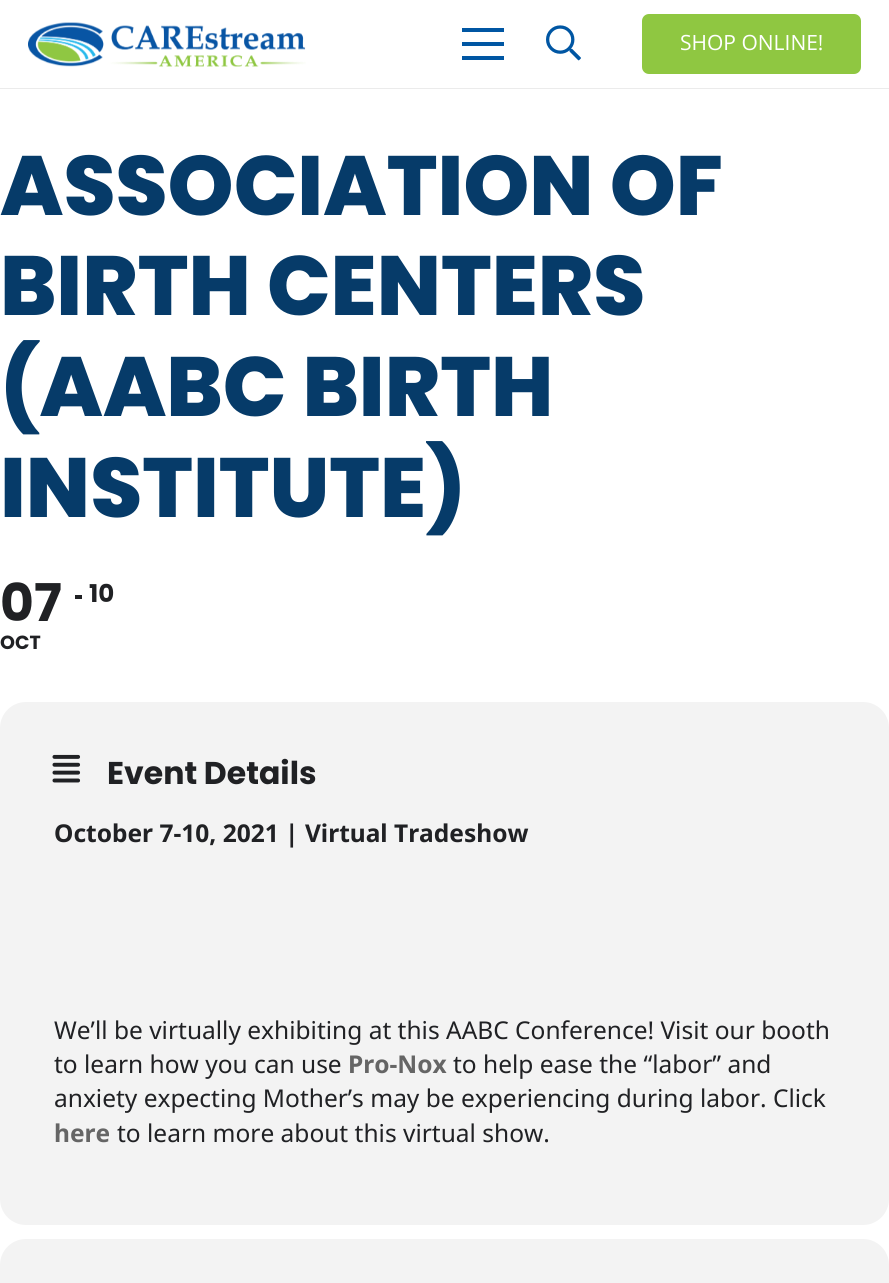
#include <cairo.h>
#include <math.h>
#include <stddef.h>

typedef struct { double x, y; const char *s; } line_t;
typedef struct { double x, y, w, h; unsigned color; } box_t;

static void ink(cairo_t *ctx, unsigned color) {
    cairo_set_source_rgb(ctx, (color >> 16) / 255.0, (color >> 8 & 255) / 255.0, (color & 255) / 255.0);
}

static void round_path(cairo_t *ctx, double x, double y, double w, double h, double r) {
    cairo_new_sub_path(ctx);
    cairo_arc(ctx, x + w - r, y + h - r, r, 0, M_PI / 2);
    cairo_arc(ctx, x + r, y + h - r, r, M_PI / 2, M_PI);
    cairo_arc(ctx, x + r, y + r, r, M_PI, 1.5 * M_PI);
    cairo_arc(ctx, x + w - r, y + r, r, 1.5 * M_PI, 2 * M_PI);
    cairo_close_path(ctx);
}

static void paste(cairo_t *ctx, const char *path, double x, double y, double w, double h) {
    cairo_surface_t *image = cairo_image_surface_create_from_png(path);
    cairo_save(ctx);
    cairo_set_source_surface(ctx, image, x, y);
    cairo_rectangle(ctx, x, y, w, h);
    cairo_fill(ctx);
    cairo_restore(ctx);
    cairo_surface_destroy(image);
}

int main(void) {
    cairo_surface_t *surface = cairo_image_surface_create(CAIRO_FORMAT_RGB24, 889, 1283);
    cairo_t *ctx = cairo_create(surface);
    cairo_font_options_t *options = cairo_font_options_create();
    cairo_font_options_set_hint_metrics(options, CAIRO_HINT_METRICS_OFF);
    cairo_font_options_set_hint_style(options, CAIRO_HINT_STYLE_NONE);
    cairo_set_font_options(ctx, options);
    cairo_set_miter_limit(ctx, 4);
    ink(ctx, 0xFFFFFF);
    cairo_paint(ctx);
    cairo_set_source_rgba(ctx, 0, 0, 0, 0.08);
    cairo_rectangle(ctx, 0, 88, 889, 1);
    cairo_fill(ctx);
    paste(ctx, "media/1.png", 28, 22, 278, 45);
    {
        static const box_t items[] = {
            {462, 42, 42, 4, 0x0056A3},
            {462, 28, 42, 4, 0x0056A3},
            {462, 56, 42, 4, 0x0056A3},
        };
        for (size_t i = 0; i < sizeof items / sizeof *items; i++) {
            ink(ctx, items[i].color);
            cairo_rectangle(ctx, items[i].x, items[i].y, items[i].w, items[i].h);
            cairo_fill(ctx);
        }
    }
    paste(ctx, "media/2.png", 546, 25, 35, 36);
    ink(ctx, 0x8FC741);
    round_path(ctx, 642, 14, 219, 60, 7);
    cairo_fill(ctx);
    cairo_select_font_face(ctx, "Open Sans", CAIRO_FONT_SLANT_NORMAL, CAIRO_FONT_WEIGHT_NORMAL);
    cairo_set_font_size(ctx, 21);
    ink(ctx, 0xFFFFFF);
    cairo_move_to(ctx, 680, 50);
    cairo_show_text(ctx, "SHOP ONLINE!");
    cairo_select_font_face(ctx, "Poppins ExtraBold", CAIRO_FONT_SLANT_NORMAL, CAIRO_FONT_WEIGHT_NORMAL);
    cairo_set_font_size(ctx, 84);
    ink(ctx, 0x063B69);
    {
        static const line_t items[] = {
            {0, 215, "ASSOCIATION OF"},
            {0, 315, "BIRTH CENTERS"},
            {0, 416, "(AABC BIRTH"},
            {0, 517, "INSTITUTE)"},
        };
        for (size_t i = 0; i < sizeof items / sizeof *items; i++) {
            cairo_move_to(ctx, items[i].x, items[i].y);
            cairo_show_text(ctx, items[i].s);
        }
    }
    cairo_select_font_face(ctx, "Poppins", CAIRO_FONT_SLANT_NORMAL, CAIRO_FONT_WEIGHT_BOLD);
    cairo_set_font_size(ctx, 52);
    ink(ctx, 0x202124);
    cairo_move_to(ctx, 0, 621);
    cairo_show_text(ctx, "07");
    cairo_set_font_size(ctx, 19);
    cairo_move_to(ctx, 0, 649);
    cairo_show_text(ctx, "OCT");
    cairo_rectangle(ctx, 75, 595, 7, 4);
    cairo_fill(ctx);
    cairo_set_font_size(ctx, 24.5);
    cairo_move_to(ctx, 89, 602);
    cairo_show_text(ctx, "10");
    ink(ctx, 0xF3F3F3);
    round_path(ctx, 0, 702, 889, 523, 26);
    cairo_fill(ctx);
    paste(ctx, "media/3.png", 52, 754, 29, 29);
    cairo_set_font_size(ctx, 31.5);
    ink(ctx, 0x202124);
    cairo_move_to(ctx, 107, 784);
    cairo_show_text(ctx, "Event Details");
    cairo_select_font_face(ctx, "Noto Sans", CAIRO_FONT_SLANT_NORMAL, CAIRO_FONT_WEIGHT_BOLD);
    cairo_set_font_size(ctx, 24.5);
    cairo_move_to(ctx, 54, 842);
    cairo_show_text(ctx, "October 7-10, 2021 | Virtual Tradeshow");
    cairo_select_font_face(ctx, "Noto Sans", CAIRO_FONT_SLANT_NORMAL, CAIRO_FONT_WEIGHT_NORMAL);
    cairo_move_to(ctx, 54, 1039);
    cairo_show_text(ctx, "We’ll be virtually exhibiting at this AABC Conference! Visit our booth");
    cairo_move_to(ctx, 54, 1073);
    cairo_show_text(ctx, "to learn how you can use");
    cairo_select_font_face(ctx, "Noto Sans", CAIRO_FONT_SLANT_NORMAL, CAIRO_FONT_WEIGHT_BOLD);
    ink(ctx, 0x656565);
    cairo_move_to(ctx, 348, 1073);
    cairo_show_text(ctx, "Pro-Nox");
    cairo_select_font_face(ctx, "Noto Sans", CAIRO_FONT_SLANT_NORMAL, CAIRO_FONT_WEIGHT_NORMAL);
    ink(ctx, 0x202124);
    cairo_move_to(ctx, 453, 1073);
    cairo_show_text(ctx, "to help ease the “labor” and");
    cairo_move_to(ctx, 54, 1107);
    cairo_show_text(ctx, "anxiety expecting Mother’s may be experiencing during labor. Click");
    cairo_select_font_face(ctx, "Noto Sans", CAIRO_FONT_SLANT_NORMAL, CAIRO_FONT_WEIGHT_BOLD);
    ink(ctx, 0x656565);
    cairo_move_to(ctx, 54, 1142);
    cairo_show_text(ctx, "here");
    cairo_select_font_face(ctx, "Noto Sans", CAIRO_FONT_SLANT_NORMAL, CAIRO_FONT_WEIGHT_NORMAL);
    ink(ctx, 0x202124);
    cairo_move_to(ctx, 117, 1142);
    cairo_show_text(ctx, "to learn more about this virtual show.");
    ink(ctx, 0xF3F3F3);
    round_path(ctx, 0, 1239, 889, 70, 26);
    cairo_fill(ctx);
    cairo_surface_write_to_png(surface, "image.png");
    cairo_font_options_destroy(options);
    cairo_destroy(ctx);
    cairo_surface_destroy(surface);
    return 0;
}
